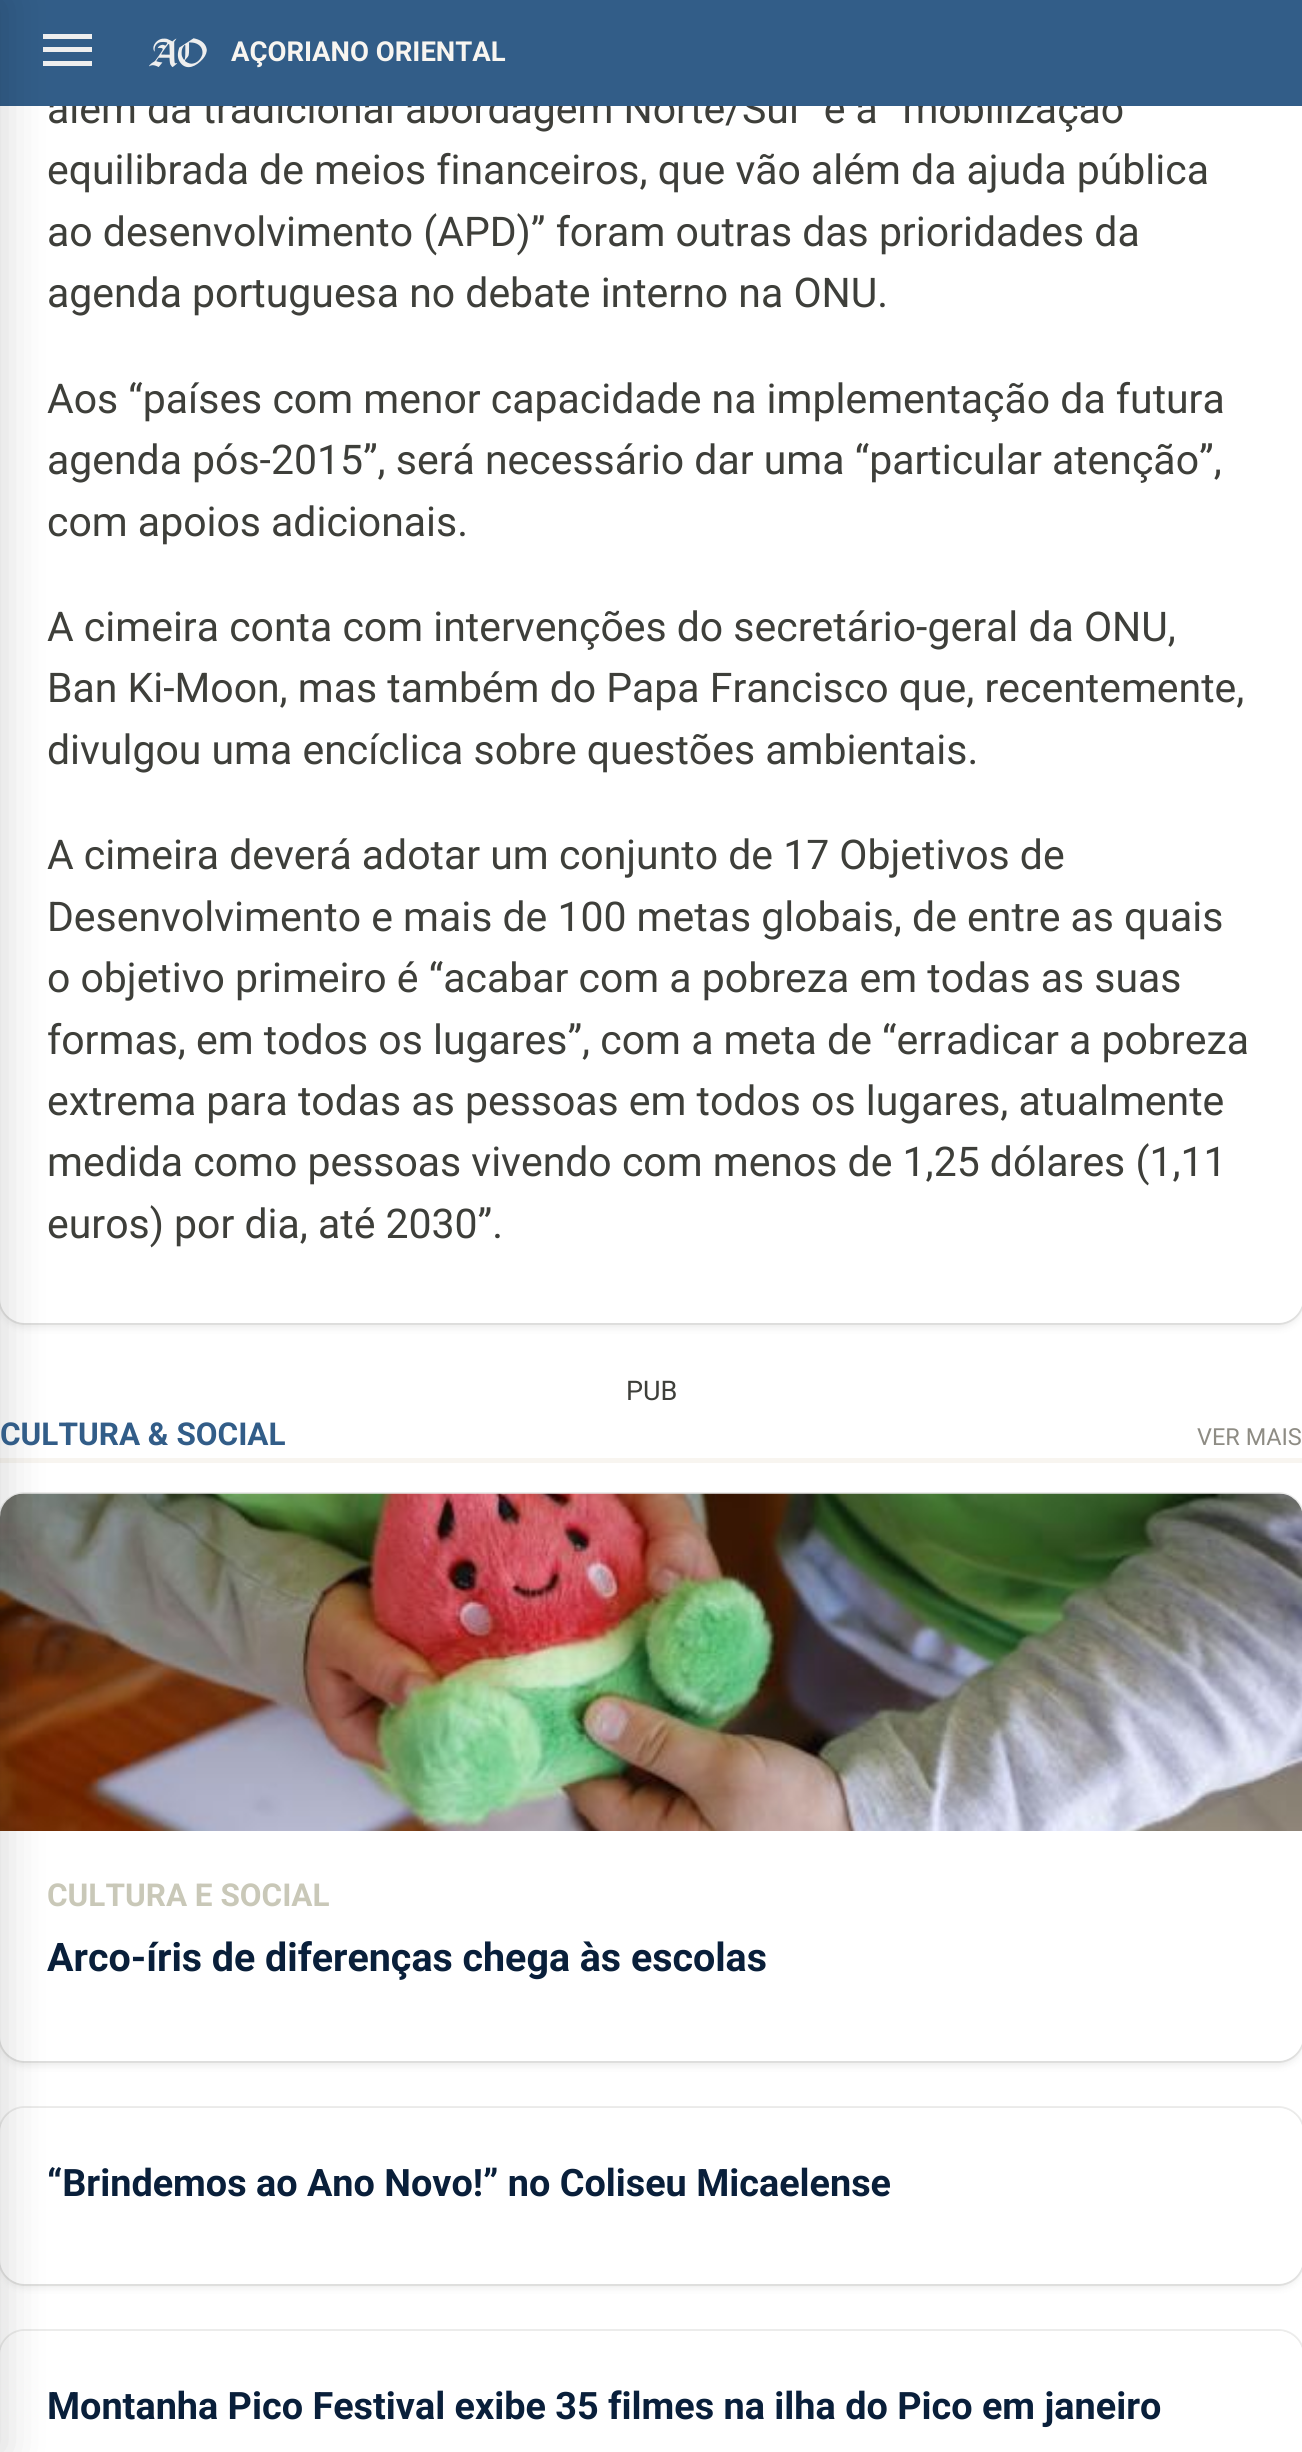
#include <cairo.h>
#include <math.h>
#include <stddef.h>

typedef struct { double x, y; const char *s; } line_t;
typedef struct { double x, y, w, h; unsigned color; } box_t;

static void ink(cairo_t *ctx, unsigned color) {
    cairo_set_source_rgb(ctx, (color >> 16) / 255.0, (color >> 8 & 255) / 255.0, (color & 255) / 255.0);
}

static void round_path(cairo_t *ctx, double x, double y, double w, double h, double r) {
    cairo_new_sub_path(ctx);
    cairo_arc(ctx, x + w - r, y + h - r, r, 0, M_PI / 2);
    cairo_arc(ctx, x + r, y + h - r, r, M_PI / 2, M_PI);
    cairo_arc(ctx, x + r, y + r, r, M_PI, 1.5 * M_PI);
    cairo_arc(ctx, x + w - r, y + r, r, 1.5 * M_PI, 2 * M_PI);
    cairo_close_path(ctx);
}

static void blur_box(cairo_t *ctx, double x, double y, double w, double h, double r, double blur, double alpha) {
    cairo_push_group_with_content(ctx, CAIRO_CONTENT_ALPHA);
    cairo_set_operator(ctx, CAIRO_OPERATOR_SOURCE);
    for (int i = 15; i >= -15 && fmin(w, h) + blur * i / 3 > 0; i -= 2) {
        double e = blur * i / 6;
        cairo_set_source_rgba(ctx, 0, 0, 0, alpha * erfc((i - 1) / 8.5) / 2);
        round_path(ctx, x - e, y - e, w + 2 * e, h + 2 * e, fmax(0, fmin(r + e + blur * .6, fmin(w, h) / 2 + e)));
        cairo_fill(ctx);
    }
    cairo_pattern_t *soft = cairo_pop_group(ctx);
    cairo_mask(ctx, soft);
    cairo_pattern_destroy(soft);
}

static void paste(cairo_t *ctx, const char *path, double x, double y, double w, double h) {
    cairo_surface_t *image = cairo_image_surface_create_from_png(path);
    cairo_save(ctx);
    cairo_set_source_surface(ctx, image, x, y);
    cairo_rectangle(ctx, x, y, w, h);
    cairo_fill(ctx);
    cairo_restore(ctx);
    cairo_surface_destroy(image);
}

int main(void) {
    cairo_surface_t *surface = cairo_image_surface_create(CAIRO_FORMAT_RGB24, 1302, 2452);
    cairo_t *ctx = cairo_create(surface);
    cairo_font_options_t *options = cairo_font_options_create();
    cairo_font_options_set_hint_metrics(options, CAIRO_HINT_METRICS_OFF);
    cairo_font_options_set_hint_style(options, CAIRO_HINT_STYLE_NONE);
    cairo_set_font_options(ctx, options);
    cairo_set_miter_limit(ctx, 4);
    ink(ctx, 0xFFFFFF);
    cairo_paint(ctx);
    round_path(ctx, -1, -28, 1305, 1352, 26);
    ink(ctx, 0xECECEB);
    cairo_stroke(ctx);
    ink(ctx, 0x3E3F3A);
    blur_box(ctx, 0, -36, 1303, 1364, 25, 3.5, 0.1);
    ink(ctx, 0xFFFFFF);
    round_path(ctx, 0, -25, 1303, 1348, 25);
    cairo_fill(ctx);
    cairo_select_font_face(ctx, "Roboto", CAIRO_FONT_SLANT_NORMAL, CAIRO_FONT_WEIGHT_NORMAL);
    cairo_set_font_size(ctx, 40.95);
    ink(ctx, 0x3E3F3A);
    cairo_move_to(ctx, 47, 123);
    cairo_show_text(ctx, "além da tradicional abordagem Norte/Sul” e a “mobilização");
    {
        static const box_t items[] = {
            {0, 0, 1302, 106, 0x325D88},
            {43, 34, 49, 5, 0xEEEEEE},
            {43, 61, 49, 5, 0xEEEEEE},
            {43, 47, 49, 5, 0xEEEEEE},
            {0, 1458, 1302, 5, 0xF8F5F0},
        };
        for (size_t i = 0; i < sizeof items / sizeof *items; i++) {
            ink(ctx, items[i].color);
            cairo_rectangle(ctx, items[i].x, items[i].y, items[i].w, items[i].h);
            cairo_fill(ctx);
        }
    }
    round_path(ctx, -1, 1493, 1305, 569, 26);
    ink(ctx, 0xECECEB);
    cairo_stroke(ctx);
    ink(ctx, 0x3E3F3A);
    blur_box(ctx, 0, 1499, 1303, 567, 25, 3.5, 0.1);
    ink(ctx, 0xFFFFFF);
    round_path(ctx, 0, 1494, 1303, 567, 25);
    cairo_fill(ctx);
    paste(ctx, "media/2.png", 0, 1493, 1302, 338);
    round_path(ctx, -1, 2107, 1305, 178, 26);
    ink(ctx, 0xECECEB);
    cairo_stroke(ctx);
    ink(ctx, 0x3E3F3A);
    blur_box(ctx, 0, 2113, 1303, 175, 25, 3.5, 0.1);
    ink(ctx, 0xFFFFFF);
    round_path(ctx, 0, 2108, 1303, 176, 25);
    cairo_fill(ctx);
    round_path(ctx, -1, 2330, 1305, 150, 26);
    ink(ctx, 0xECECEB);
    cairo_stroke(ctx);
    ink(ctx, 0xFFFFFF);
    round_path(ctx, 0, 2331, 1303, 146, 25);
    cairo_fill(ctx);
    ink(ctx, 0x000000);
    blur_box(ctx, -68, 0, 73, 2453, 0, 22.5, 0.15);
    paste(ctx, "media/1.png", 149, 38, 58, 30);
    cairo_select_font_face(ctx, "Roboto", CAIRO_FONT_SLANT_NORMAL, CAIRO_FONT_WEIGHT_BOLD);
    cairo_set_font_size(ctx, 27.5);
    ink(ctx, 0xF8F5F0);
    cairo_move_to(ctx, 231, 61);
    cairo_show_text(ctx, "AÇORIANO ORIENTAL");
    cairo_select_font_face(ctx, "Roboto", CAIRO_FONT_SLANT_NORMAL, CAIRO_FONT_WEIGHT_NORMAL);
    cairo_set_font_size(ctx, 40.95);
    ink(ctx, 0x3E3F3A);
    {
        static const line_t items[] = {
            {47, 184, "equilibrada de meios financeiros, que vão além da ajuda pública"},
            {47, 246, "ao desenvolvimento (APD)” foram outras das prioridades da"},
            {47, 307, "agenda portuguesa no debate interno na ONU."},
            {47, 413, "Aos “países com menor capacidade na implementação da futura"},
            {47, 474, "agenda pós-2015”, será necessário dar uma “particular atenção”,"},
            {47, 536, "com apoios adicionais."},
            {47, 641, "A cimeira conta com intervenções do secretário-geral da ONU,"},
            {47, 702, "Ban Ki-Moon, mas também do Papa Francisco que, recentemente,"},
            {47, 764, "divulgou uma encíclica sobre questões ambientais."},
            {47, 869, "A cimeira deverá adotar um conjunto de 17 Objetivos de"},
            {47, 931, "Desenvolvimento e mais de 100 metas globais, de entre as quais"},
            {47, 992, "o objetivo primeiro é “acabar com a pobreza em todas as suas"},
            {47, 1054, "formas, em todos os lugares”, com a meta de “erradicar a pobreza"},
            {47, 1115, "extrema para todas as pessoas em todos os lugares, atualmente"},
            {47, 1176, "medida como pessoas vivendo com menos de 1,25 dólares (1,11"},
            {47, 1238, "euros) por dia, até 2030”."},
        };
        for (size_t i = 0; i < sizeof items / sizeof *items; i++) {
            cairo_move_to(ctx, items[i].x, items[i].y);
            cairo_show_text(ctx, items[i].s);
        }
    }
    cairo_set_font_size(ctx, 27);
    cairo_move_to(ctx, 626, 1400);
    cairo_show_text(ctx, "PUB");
    cairo_select_font_face(ctx, "Roboto", CAIRO_FONT_SLANT_NORMAL, CAIRO_FONT_WEIGHT_BOLD);
    cairo_set_font_size(ctx, 31.5);
    ink(ctx, 0x325D88);
    cairo_move_to(ctx, 0, 1445);
    cairo_show_text(ctx, "CULTURA & SOCIAL");
    cairo_select_font_face(ctx, "Roboto", CAIRO_FONT_SLANT_NORMAL, CAIRO_FONT_WEIGHT_NORMAL);
    cairo_set_font_size(ctx, 23.5);
    ink(ctx, 0x8E8C84);
    cairo_move_to(ctx, 1197, 1445);
    cairo_show_text(ctx, "VER MAIS");
    cairo_select_font_face(ctx, "Roboto", CAIRO_FONT_SLANT_NORMAL, CAIRO_FONT_WEIGHT_BOLD);
    cairo_set_font_size(ctx, 31.5);
    ink(ctx, 0xC9C8B8);
    cairo_move_to(ctx, 47, 1906);
    cairo_show_text(ctx, "CULTURA E SOCIAL");
    cairo_set_font_size(ctx, 39.4);
    ink(ctx, 0x091F3A);
    cairo_move_to(ctx, 47, 1971);
    cairo_show_text(ctx, "Arco-íris de diferenças chega às escolas");
    cairo_set_font_size(ctx, 37.8);
    cairo_move_to(ctx, 47, 2196);
    cairo_show_text(ctx, "“Brindemos ao Ano Novo!” no Coliseu Micaelense");
    cairo_move_to(ctx, 47, 2419);
    cairo_show_text(ctx, "Montanha Pico Festival exibe 35 filmes na ilha do Pico em janeiro");
    cairo_surface_write_to_png(surface, "image.png");
    cairo_font_options_destroy(options);
    cairo_destroy(ctx);
    cairo_surface_destroy(surface);
    return 0;
}
